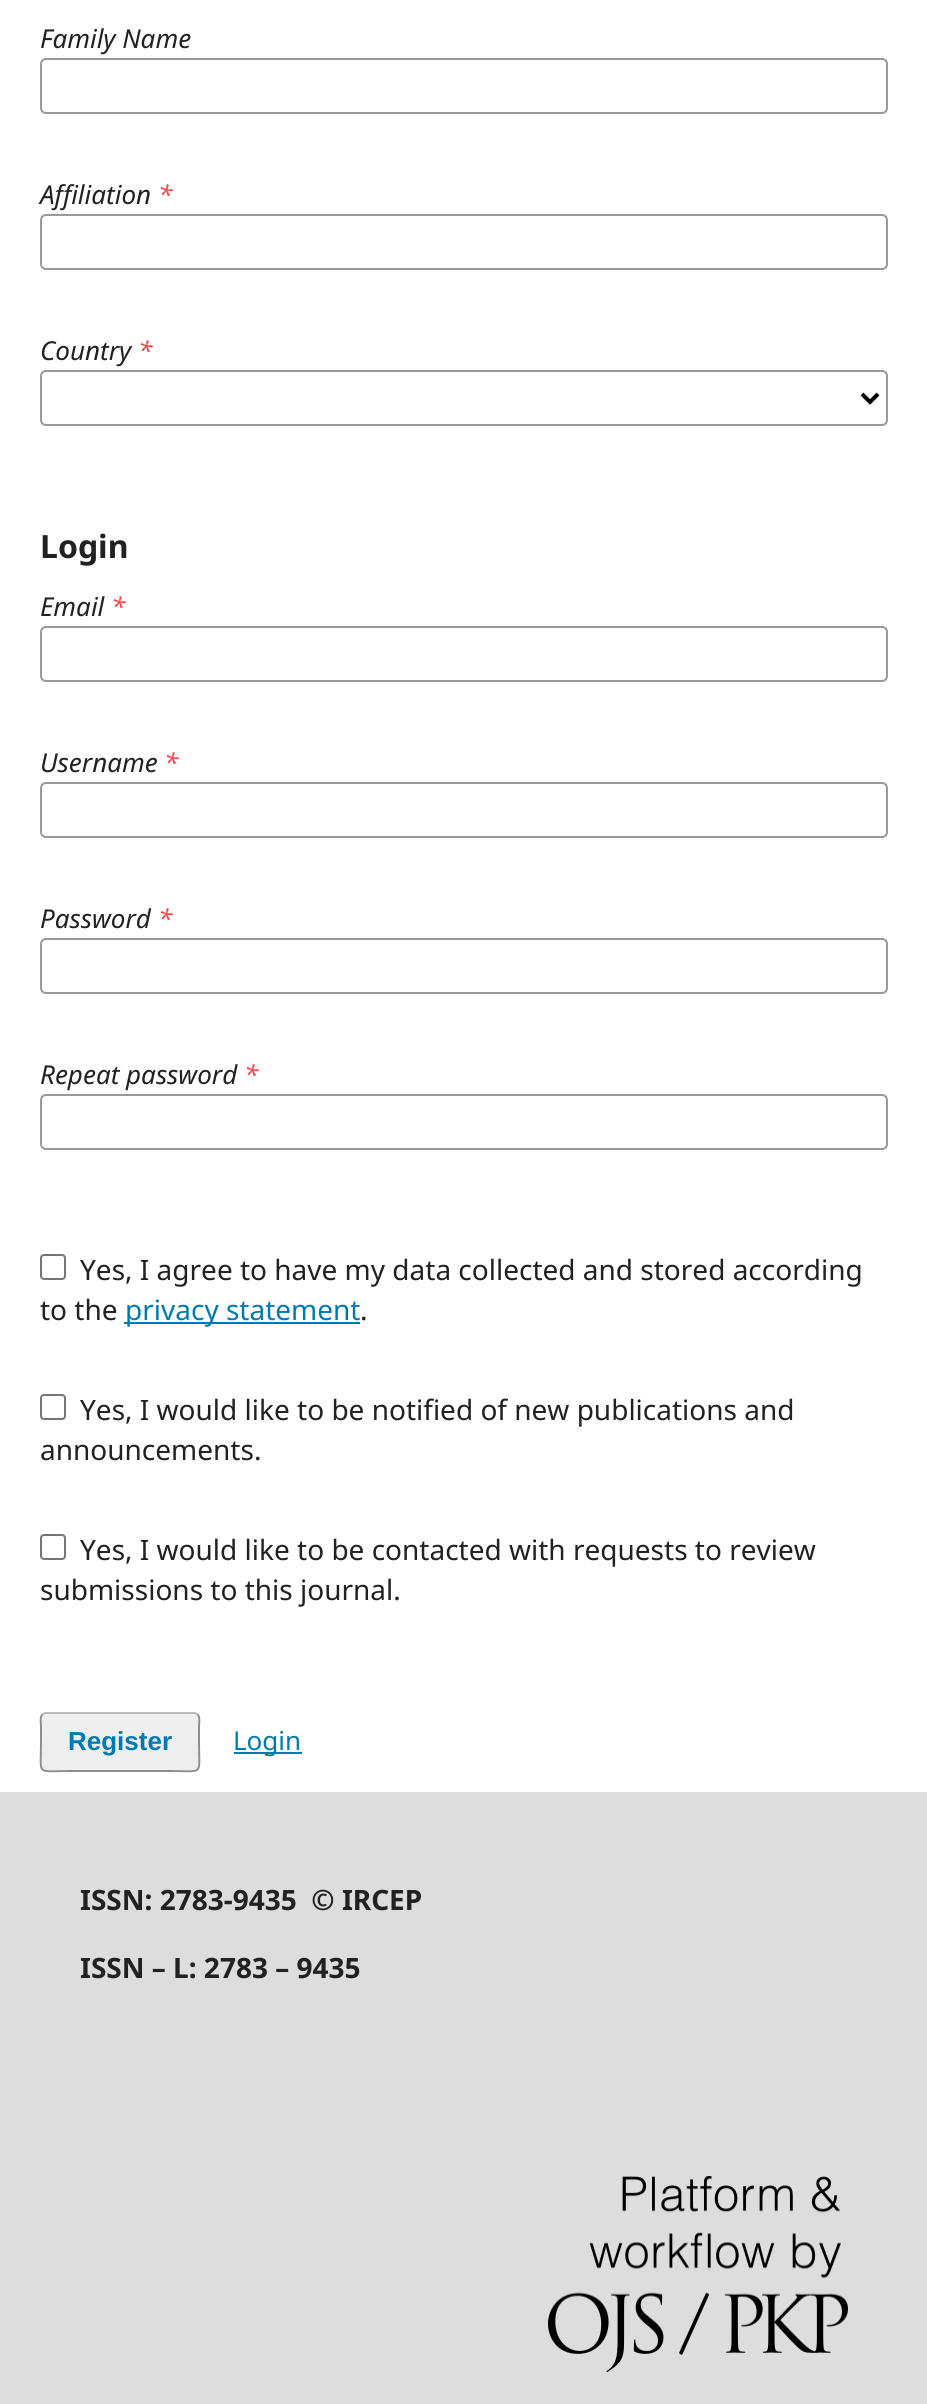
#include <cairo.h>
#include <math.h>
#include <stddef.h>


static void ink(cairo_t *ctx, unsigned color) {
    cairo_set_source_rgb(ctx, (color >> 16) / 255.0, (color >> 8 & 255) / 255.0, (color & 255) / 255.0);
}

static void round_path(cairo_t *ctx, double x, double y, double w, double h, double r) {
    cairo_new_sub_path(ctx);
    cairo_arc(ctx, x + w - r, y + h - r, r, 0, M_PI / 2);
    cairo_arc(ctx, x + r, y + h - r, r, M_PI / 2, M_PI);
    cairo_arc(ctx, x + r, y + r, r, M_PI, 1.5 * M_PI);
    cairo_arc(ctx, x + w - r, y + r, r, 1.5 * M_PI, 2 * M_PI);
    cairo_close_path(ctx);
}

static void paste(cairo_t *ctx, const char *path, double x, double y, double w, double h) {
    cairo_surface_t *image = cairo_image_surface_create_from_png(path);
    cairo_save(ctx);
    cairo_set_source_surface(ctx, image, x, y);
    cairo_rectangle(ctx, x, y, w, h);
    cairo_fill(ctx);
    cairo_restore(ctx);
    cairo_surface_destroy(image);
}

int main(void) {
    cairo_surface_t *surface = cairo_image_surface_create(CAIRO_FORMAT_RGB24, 927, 2404);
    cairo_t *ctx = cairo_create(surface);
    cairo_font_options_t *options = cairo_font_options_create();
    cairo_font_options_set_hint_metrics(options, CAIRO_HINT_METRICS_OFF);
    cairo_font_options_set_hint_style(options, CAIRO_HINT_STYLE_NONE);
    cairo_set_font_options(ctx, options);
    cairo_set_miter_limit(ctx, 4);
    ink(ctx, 0xFFFFFF);
    cairo_paint(ctx);
    cairo_select_font_face(ctx, "Noto Sans", CAIRO_FONT_SLANT_ITALIC, CAIRO_FONT_WEIGHT_NORMAL);
    cairo_set_font_size(ctx, 26);
    ink(ctx, 0x212121);
    cairo_move_to(ctx, 40, 48);
    cairo_show_text(ctx, "Family Name");
    round_path(ctx, 41, 59, 846, 54, 5);
    ink(ctx, 0x999999);
    cairo_stroke(ctx);
    ink(ctx, 0x212121);
    cairo_move_to(ctx, 40, 204);
    cairo_show_text(ctx, "Affiliation");
    ink(ctx, 0xFF4040);
    cairo_move_to(ctx, 158, 204);
    cairo_show_text(ctx, "*");
    round_path(ctx, 41, 215, 846, 54, 5);
    ink(ctx, 0x999999);
    cairo_stroke(ctx);
    ink(ctx, 0x212121);
    cairo_move_to(ctx, 40, 360);
    cairo_show_text(ctx, "Country");
    ink(ctx, 0xFF4040);
    cairo_move_to(ctx, 138, 360);
    cairo_show_text(ctx, "*");
    round_path(ctx, 41, 371, 846, 54, 5);
    ink(ctx, 0x999999);
    cairo_stroke(ctx);
    cairo_new_path(ctx);
    cairo_move_to(ctx, 862, 394);
    cairo_line_to(ctx, 870, 402);
    cairo_line_to(ctx, 878, 394);
    ink(ctx, 0x000000);
    cairo_set_line_width(ctx, 4);
    cairo_stroke(ctx);
    cairo_select_font_face(ctx, "Noto Sans", CAIRO_FONT_SLANT_NORMAL, CAIRO_FONT_WEIGHT_BOLD);
    cairo_set_font_size(ctx, 32);
    ink(ctx, 0x212121);
    cairo_move_to(ctx, 40, 558);
    cairo_show_text(ctx, "Login");
    cairo_select_font_face(ctx, "Noto Sans", CAIRO_FONT_SLANT_ITALIC, CAIRO_FONT_WEIGHT_NORMAL);
    cairo_set_font_size(ctx, 26);
    cairo_move_to(ctx, 40, 616);
    cairo_show_text(ctx, "Email");
    ink(ctx, 0xFF4040);
    cairo_move_to(ctx, 111, 616);
    cairo_show_text(ctx, "*");
    round_path(ctx, 41, 627, 846, 54, 5);
    ink(ctx, 0x999999);
    cairo_set_line_width(ctx, 2);
    cairo_stroke(ctx);
    ink(ctx, 0x212121);
    cairo_move_to(ctx, 40, 772);
    cairo_show_text(ctx, "Username");
    ink(ctx, 0xFF4040);
    cairo_move_to(ctx, 164, 772);
    cairo_show_text(ctx, "*");
    round_path(ctx, 41, 783, 846, 54, 5);
    ink(ctx, 0x999999);
    cairo_stroke(ctx);
    ink(ctx, 0x212121);
    cairo_move_to(ctx, 40, 928);
    cairo_show_text(ctx, "Password");
    ink(ctx, 0xFF4040);
    cairo_move_to(ctx, 158, 928);
    cairo_show_text(ctx, "*");
    round_path(ctx, 41, 939, 846, 54, 5);
    ink(ctx, 0x999999);
    cairo_stroke(ctx);
    ink(ctx, 0x212121);
    cairo_move_to(ctx, 40, 1084);
    cairo_show_text(ctx, "Repeat password");
    ink(ctx, 0xFF4040);
    cairo_move_to(ctx, 244, 1084);
    cairo_show_text(ctx, "*");
    round_path(ctx, 41, 1095, 846, 54, 5);
    ink(ctx, 0x999999);
    cairo_stroke(ctx);
    round_path(ctx, 41, 1255, 24, 24, 3);
    ink(ctx, 0x767676);
    cairo_stroke(ctx);
    cairo_select_font_face(ctx, "Noto Sans", CAIRO_FONT_SLANT_NORMAL, CAIRO_FONT_WEIGHT_NORMAL);
    cairo_set_font_size(ctx, 28);
    ink(ctx, 0x212121);
    cairo_move_to(ctx, 80, 1280);
    cairo_show_text(ctx, "Yes, I agree to have my data collected and stored according");
    cairo_move_to(ctx, 40, 1320);
    cairo_show_text(ctx, "to the");
    ink(ctx, 0x007AB2);
    cairo_rectangle(ctx, 124, 1322, 236, 2);
    cairo_fill(ctx);
    cairo_move_to(ctx, 125, 1320);
    cairo_show_text(ctx, "privacy statement");
    ink(ctx, 0x212121);
    cairo_move_to(ctx, 360, 1320);
    cairo_show_text(ctx, ".");
    round_path(ctx, 41, 1395, 24, 24, 3);
    ink(ctx, 0x767676);
    cairo_stroke(ctx);
    ink(ctx, 0x212121);
    cairo_move_to(ctx, 80, 1420);
    cairo_show_text(ctx, "Yes, I would like to be notified of new publications and");
    cairo_move_to(ctx, 40, 1460);
    cairo_show_text(ctx, "announcements.");
    round_path(ctx, 41, 1535, 24, 24, 3);
    ink(ctx, 0x767676);
    cairo_stroke(ctx);
    ink(ctx, 0x212121);
    cairo_move_to(ctx, 80, 1560);
    cairo_show_text(ctx, "Yes, I would like to be contacted with requests to review");
    cairo_move_to(ctx, 40, 1600);
    cairo_show_text(ctx, "submissions to this journal.");
    ink(ctx, 0xEEEEEE);
    round_path(ctx, 40, 1712, 160, 60, 6);
    cairo_fill(ctx);
    cairo_new_path(ctx);
    cairo_move_to(ctx, 42.5, 1714.5);
    cairo_curve_to(ctx, 43.5, 1713.5, 44.5, 1713, 46, 1713);
    cairo_line_to(ctx, 194, 1713);
    cairo_curve_to(ctx, 195.5, 1713, 196.5, 1713.5, 197.5, 1714.5);
    ink(ctx, 0xBBBBBB);
    cairo_stroke(ctx);
    cairo_new_path(ctx);
    cairo_move_to(ctx, 197.5, 1714.5);
    cairo_curve_to(ctx, 200.5, 1717, 199, 1723.5, 199, 1726);
    cairo_line_to(ctx, 199, 1742);
    cairo_curve_to(ctx, 199, 1776.5, 205, 1771, 169.5, 1771);
    cairo_line_to(ctx, 70.5, 1771);
    cairo_curve_to(ctx, 35, 1771, 41, 1776.5, 41, 1742);
    cairo_line_to(ctx, 41, 1726);
    cairo_curve_to(ctx, 41, 1723.5, 39.5, 1717, 42.5, 1714.5);
    cairo_set_source_rgba(ctx, 0, 0, 0, 0.4);
    cairo_stroke(ctx);
    cairo_select_font_face(ctx, "Liberation Sans", CAIRO_FONT_SLANT_NORMAL, CAIRO_FONT_WEIGHT_BOLD);
    cairo_set_font_size(ctx, 26);
    ink(ctx, 0x007AB2);
    cairo_move_to(ctx, 68, 1750);
    cairo_show_text(ctx, "Register");
    cairo_rectangle(ctx, 234, 1752, 68, 2);
    cairo_fill(ctx);
    cairo_select_font_face(ctx, "Noto Sans", CAIRO_FONT_SLANT_NORMAL, CAIRO_FONT_WEIGHT_NORMAL);
    cairo_move_to(ctx, 233, 1750);
    cairo_show_text(ctx, "Login");
    ink(ctx, 0xDDDDDD);
    cairo_rectangle(ctx, 0, 1792, 927, 612);
    cairo_fill(ctx);
    cairo_select_font_face(ctx, "Noto Sans", CAIRO_FONT_SLANT_NORMAL, CAIRO_FONT_WEIGHT_BOLD);
    cairo_set_font_size(ctx, 28);
    ink(ctx, 0x212121);
    cairo_move_to(ctx, 80, 1910);
    cairo_show_text(ctx, "ISSN: 2783-9435  © IRCEP");
    cairo_move_to(ctx, 80, 1978);
    cairo_show_text(ctx, "ISSN – L: 2783 – 9435");
    paste(ctx, "media/1.png", 548, 2176, 300, 196);
    cairo_surface_write_to_png(surface, "image.png");
    cairo_font_options_destroy(options);
    cairo_destroy(ctx);
    cairo_surface_destroy(surface);
    return 0;
}
